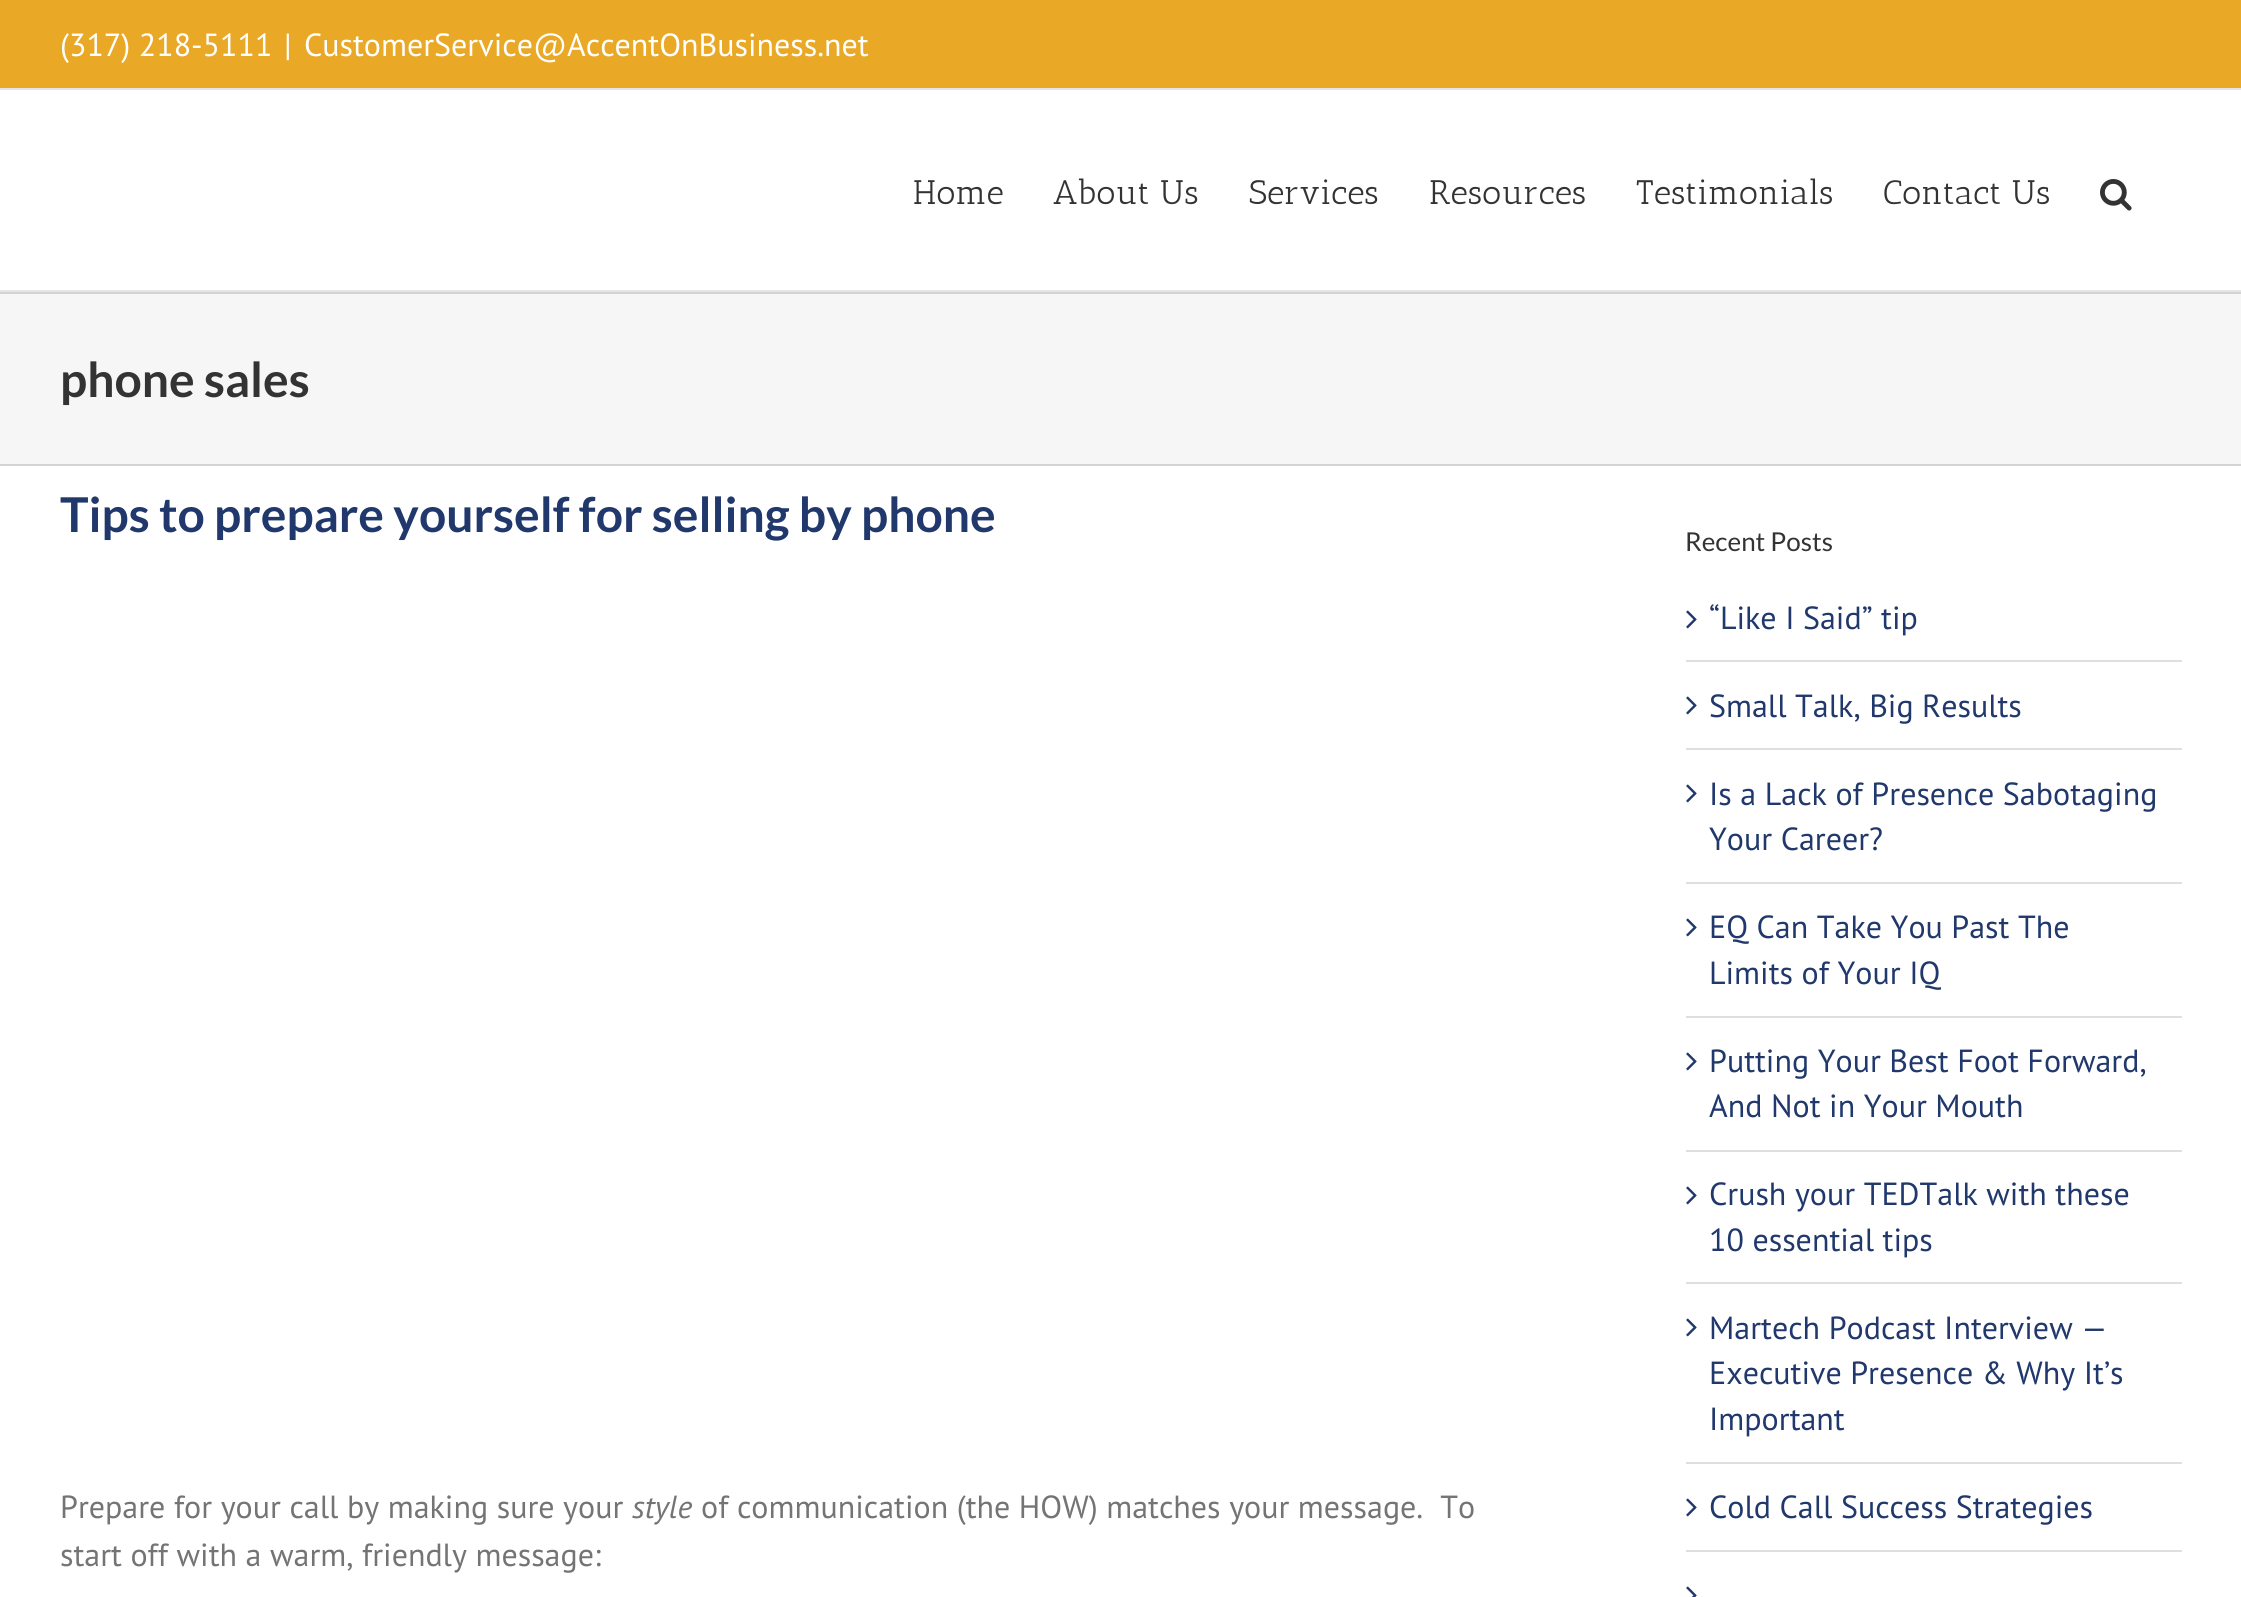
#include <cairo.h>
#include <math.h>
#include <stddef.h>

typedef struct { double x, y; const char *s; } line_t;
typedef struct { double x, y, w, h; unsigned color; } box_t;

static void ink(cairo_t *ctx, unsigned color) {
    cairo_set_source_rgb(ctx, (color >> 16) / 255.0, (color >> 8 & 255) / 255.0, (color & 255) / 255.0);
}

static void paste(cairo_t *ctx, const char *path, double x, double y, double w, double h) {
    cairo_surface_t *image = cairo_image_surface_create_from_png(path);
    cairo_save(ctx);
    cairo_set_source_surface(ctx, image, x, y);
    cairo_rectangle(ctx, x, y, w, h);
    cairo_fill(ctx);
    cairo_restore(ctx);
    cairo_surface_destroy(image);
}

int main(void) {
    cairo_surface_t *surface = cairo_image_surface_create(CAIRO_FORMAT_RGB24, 2241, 1597);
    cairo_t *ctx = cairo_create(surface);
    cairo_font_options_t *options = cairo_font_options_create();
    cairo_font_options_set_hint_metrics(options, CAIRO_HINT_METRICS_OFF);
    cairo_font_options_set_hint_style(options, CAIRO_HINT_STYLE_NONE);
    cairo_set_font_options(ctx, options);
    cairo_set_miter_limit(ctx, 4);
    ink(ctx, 0xFFFFFF);
    cairo_paint(ctx);
    ink(ctx, 0xE9A825);
    cairo_rectangle(ctx, 0, 0, 2241, 88);
    cairo_fill(ctx);
    ink(ctx, 0xE5E5E5);
    cairo_rectangle(ctx, 0, 88, 2241, 2);
    cairo_fill(ctx);
    cairo_select_font_face(ctx, "PT Sans", CAIRO_FONT_SLANT_NORMAL, CAIRO_FONT_WEIGHT_NORMAL);
    cairo_set_font_size(ctx, 32);
    ink(ctx, 0xFFFFFF);
    {
        static const line_t items[] = {
            {60, 56, "(317) 218-5111"},
            {284, 56, "|"},
            {304, 56, "CustomerService@AccentOnBusiness.net"},
        };
        for (size_t i = 0; i < sizeof items / sizeof *items; i++) {
            cairo_move_to(ctx, items[i].x, items[i].y);
            cairo_show_text(ctx, items[i].s);
        }
    }
    ink(ctx, 0xE5E5E5);
    cairo_rectangle(ctx, 0, 290, 2241, 2);
    cairo_fill(ctx);
    cairo_select_font_face(ctx, "Antic Slab", CAIRO_FONT_SLANT_NORMAL, CAIRO_FONT_WEIGHT_NORMAL);
    cairo_set_font_size(ctx, 34);
    ink(ctx, 0x333333);
    {
        static const line_t items[] = {
            {913, 204, "Home"},
            {1053, 204, "About Us"},
            {1249, 204, "Services"},
            {1429, 204, "Resources"},
            {1636, 204, "Testimonials"},
            {1883, 204, "Contact Us"},
        };
        for (size_t i = 0; i < sizeof items / sizeof *items; i++) {
            cairo_move_to(ctx, items[i].x, items[i].y);
            cairo_show_text(ctx, items[i].s);
        }
    }
    paste(ctx, "media/1.png", 2100, 179, 32, 32);
    {
        static const box_t items[] = {
            {0, 294, 2241, 170, 0xF6F6F6},
            {0, 292, 2241, 2, 0xD2D3D4},
            {0, 464, 2241, 2, 0xD2D3D4},
        };
        for (size_t i = 0; i < sizeof items / sizeof *items; i++) {
            ink(ctx, items[i].color);
            cairo_rectangle(ctx, items[i].x, items[i].y, items[i].w, items[i].h);
            cairo_fill(ctx);
        }
    }
    cairo_select_font_face(ctx, "Lato", CAIRO_FONT_SLANT_NORMAL, CAIRO_FONT_WEIGHT_BOLD);
    cairo_set_font_size(ctx, 48);
    ink(ctx, 0x333333);
    cairo_move_to(ctx, 60, 397);
    cairo_show_text(ctx, "phone sales");
    ink(ctx, 0x20386C);
    cairo_move_to(ctx, 60, 532);
    cairo_show_text(ctx, "Tips to prepare yourself for selling by phone");
    cairo_select_font_face(ctx, "PT Sans", CAIRO_FONT_SLANT_NORMAL, CAIRO_FONT_WEIGHT_NORMAL);
    cairo_set_font_size(ctx, 32);
    ink(ctx, 0x747474);
    cairo_move_to(ctx, 60, 1518);
    cairo_show_text(ctx, "Prepare for your call by making sure your");
    cairo_select_font_face(ctx, "PT Sans", CAIRO_FONT_SLANT_ITALIC, CAIRO_FONT_WEIGHT_NORMAL);
    cairo_move_to(ctx, 632, 1518);
    cairo_show_text(ctx, "style");
    cairo_select_font_face(ctx, "PT Sans", CAIRO_FONT_SLANT_NORMAL, CAIRO_FONT_WEIGHT_NORMAL);
    cairo_move_to(ctx, 701, 1518);
    cairo_show_text(ctx, "of communication (the HOW) matches your message.  To");
    cairo_move_to(ctx, 60, 1566);
    cairo_show_text(ctx, "start off with a warm, friendly message:");
    cairo_select_font_face(ctx, "Lato", CAIRO_FONT_SLANT_NORMAL, CAIRO_FONT_WEIGHT_NORMAL);
    cairo_set_font_size(ctx, 26);
    ink(ctx, 0x333333);
    cairo_move_to(ctx, 1685, 551);
    cairo_show_text(ctx, "Recent Posts");
    ink(ctx, 0xE0DEDE);
    cairo_rectangle(ctx, 1686, 660, 496, 2);
    cairo_fill(ctx);
    paste(ctx, "media/2.png", 1686, 610, 11, 19);
    cairo_select_font_face(ctx, "PT Sans", CAIRO_FONT_SLANT_NORMAL, CAIRO_FONT_WEIGHT_NORMAL);
    cairo_set_font_size(ctx, 32);
    ink(ctx, 0x20386C);
    cairo_move_to(ctx, 1709, 629);
    cairo_show_text(ctx, "“Like I Said” tip");
    ink(ctx, 0xE0DEDE);
    cairo_rectangle(ctx, 1686, 748, 496, 2);
    cairo_fill(ctx);
    paste(ctx, "media/2.png", 1686, 696, 11, 19);
    ink(ctx, 0x20386C);
    cairo_move_to(ctx, 1709, 717);
    cairo_show_text(ctx, "Small Talk, Big Results");
    ink(ctx, 0xE0DEDE);
    cairo_rectangle(ctx, 1686, 882, 496, 2);
    cairo_fill(ctx);
    paste(ctx, "media/2.png", 1686, 784, 11, 19);
    ink(ctx, 0x20386C);
    cairo_move_to(ctx, 1709, 805);
    cairo_show_text(ctx, "Is a Lack of Presence Sabotaging");
    cairo_move_to(ctx, 1709, 850);
    cairo_show_text(ctx, "Your Career?");
    ink(ctx, 0xE0DEDE);
    cairo_rectangle(ctx, 1686, 1016, 496, 2);
    cairo_fill(ctx);
    paste(ctx, "media/2.png", 1686, 918, 11, 19);
    ink(ctx, 0x20386C);
    cairo_move_to(ctx, 1709, 938);
    cairo_show_text(ctx, "EQ Can Take You Past The");
    cairo_move_to(ctx, 1709, 984);
    cairo_show_text(ctx, "Limits of Your IQ");
    ink(ctx, 0xE0DEDE);
    cairo_rectangle(ctx, 1686, 1150, 496, 2);
    cairo_fill(ctx);
    paste(ctx, "media/2.png", 1686, 1052, 11, 19);
    ink(ctx, 0x20386C);
    cairo_move_to(ctx, 1709, 1072);
    cairo_show_text(ctx, "Putting Your Best Foot Forward,");
    cairo_move_to(ctx, 1709, 1117);
    cairo_show_text(ctx, "And Not in Your Mouth");
    ink(ctx, 0xE0DEDE);
    cairo_rectangle(ctx, 1686, 1282, 496, 2);
    cairo_fill(ctx);
    paste(ctx, "media/2.png", 1686, 1186, 11, 19);
    ink(ctx, 0x20386C);
    cairo_move_to(ctx, 1709, 1205);
    cairo_show_text(ctx, "Crush your TEDTalk with these");
    cairo_move_to(ctx, 1709, 1251);
    cairo_show_text(ctx, "10 essential tips");
    ink(ctx, 0xE0DEDE);
    cairo_rectangle(ctx, 1686, 1462, 496, 2);
    cairo_fill(ctx);
    paste(ctx, "media/2.png", 1686, 1318, 11, 19);
    ink(ctx, 0x20386C);
    {
        static const line_t items[] = {
            {1709, 1339, "Martech Podcast Interview —"},
            {1709, 1384, "Executive Presence & Why It’s"},
            {1709, 1430, "Important"},
        };
        for (size_t i = 0; i < sizeof items / sizeof *items; i++) {
            cairo_move_to(ctx, items[i].x, items[i].y);
            cairo_show_text(ctx, items[i].s);
        }
    }
    ink(ctx, 0xE0DEDE);
    cairo_rectangle(ctx, 1686, 1550, 496, 2);
    cairo_fill(ctx);
    paste(ctx, "media/2.png", 1686, 1498, 11, 19);
    ink(ctx, 0x20386C);
    cairo_move_to(ctx, 1709, 1518);
    cairo_show_text(ctx, "Cold Call Success Strategies");
    paste(ctx, "media/3.png", 1686, 1586, 11, 11);
    cairo_surface_write_to_png(surface, "image.png");
    cairo_font_options_destroy(options);
    cairo_destroy(ctx);
    cairo_surface_destroy(surface);
    return 0;
}
